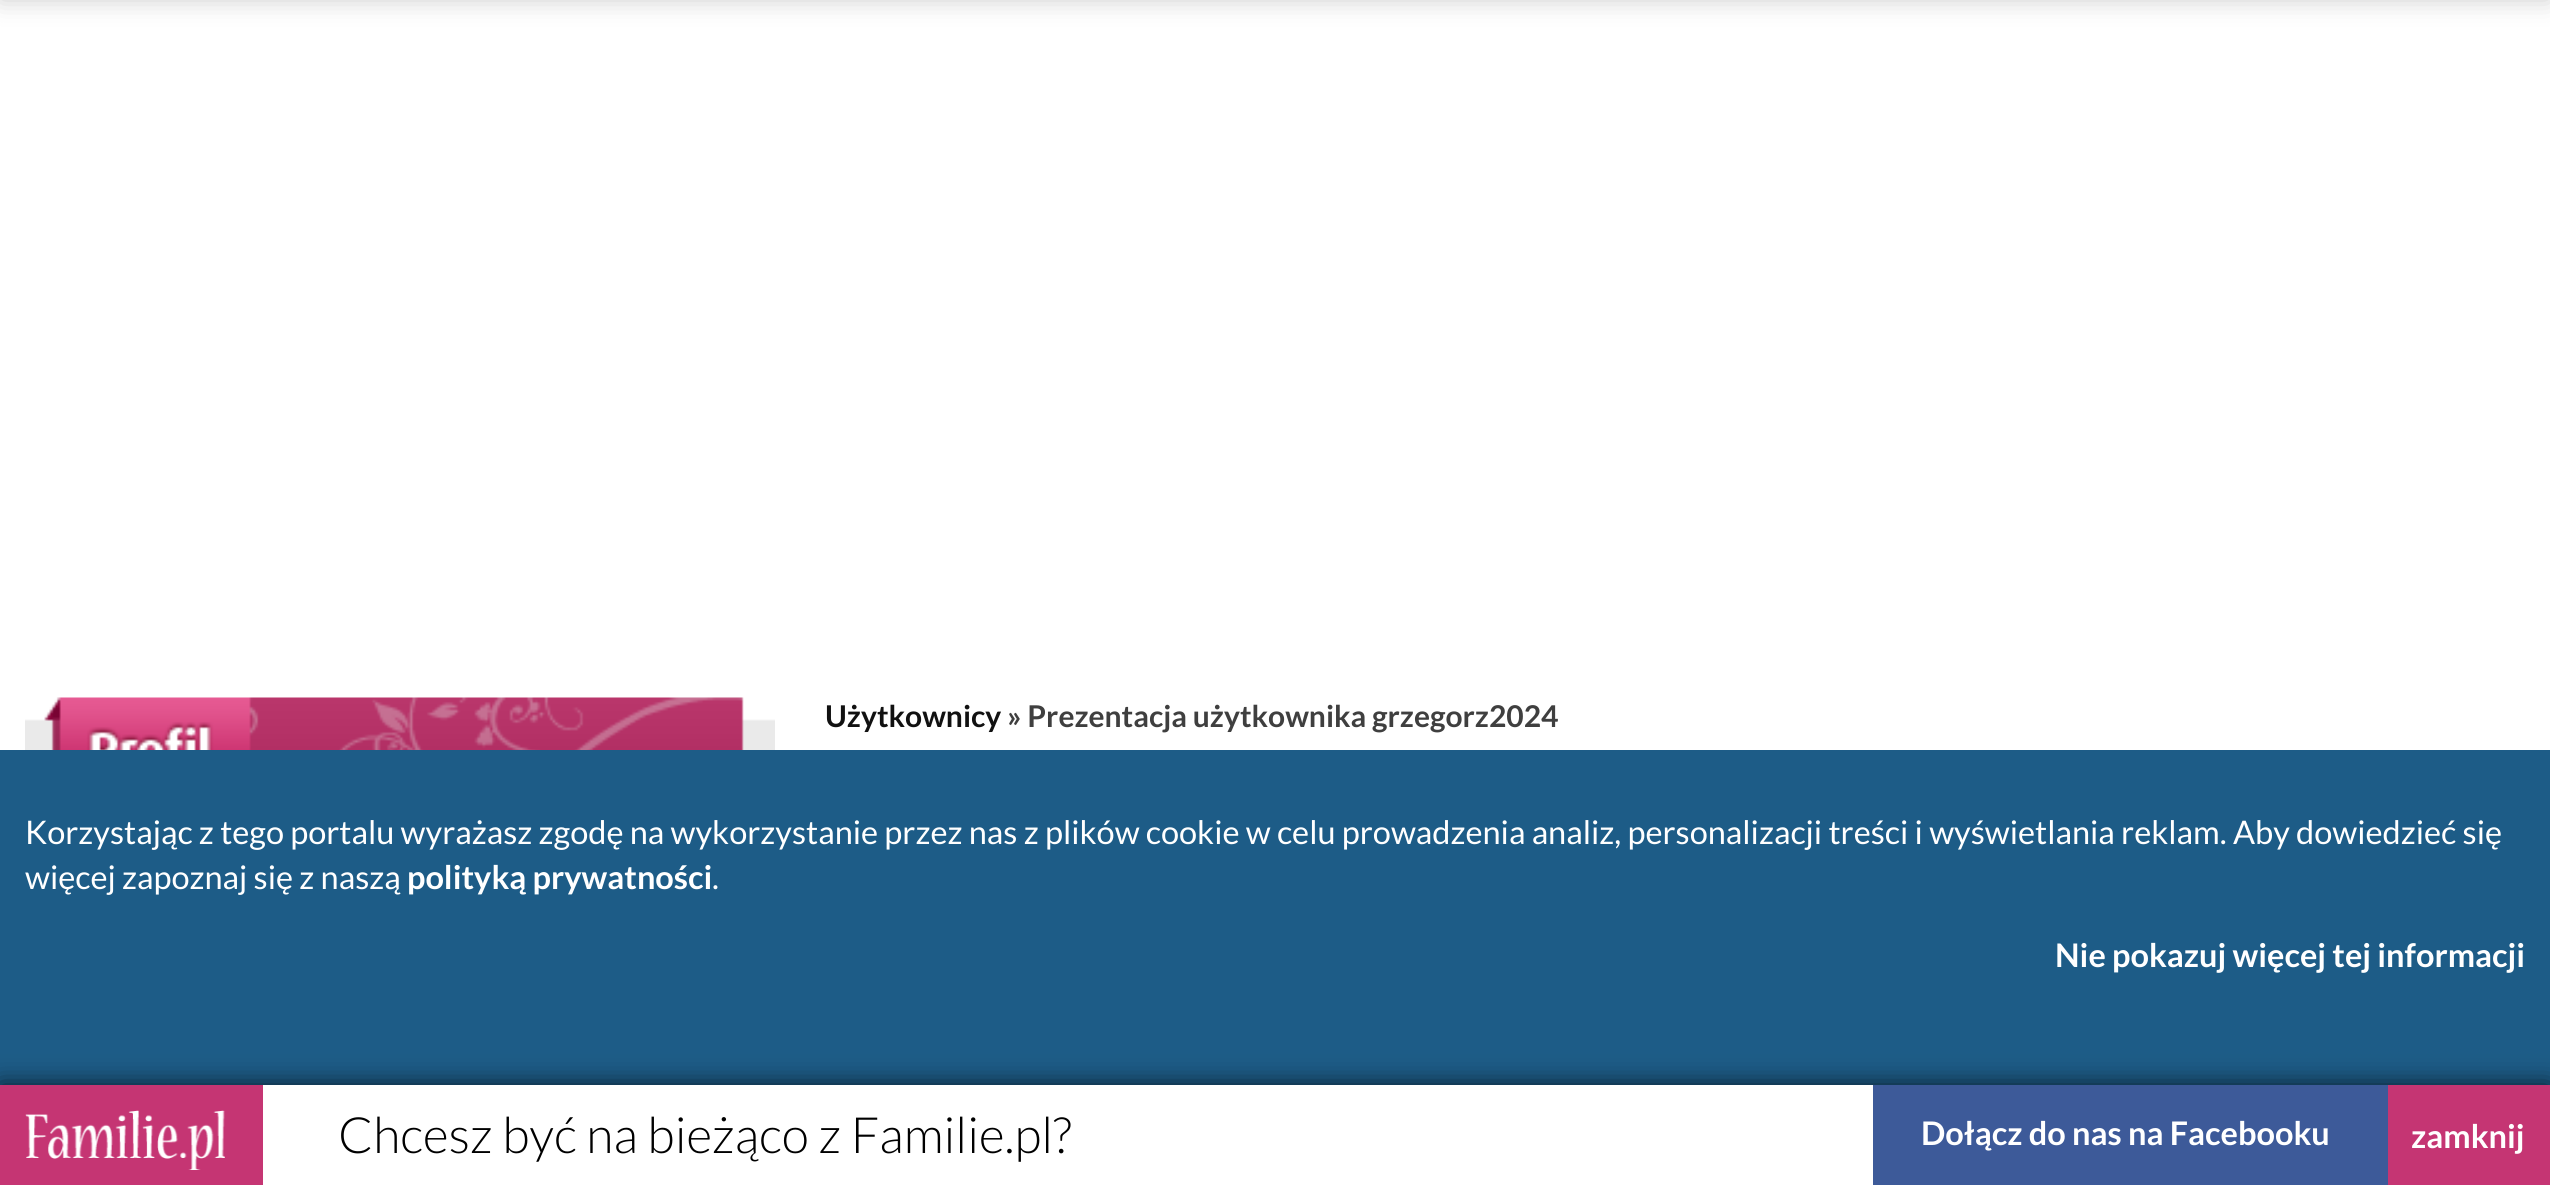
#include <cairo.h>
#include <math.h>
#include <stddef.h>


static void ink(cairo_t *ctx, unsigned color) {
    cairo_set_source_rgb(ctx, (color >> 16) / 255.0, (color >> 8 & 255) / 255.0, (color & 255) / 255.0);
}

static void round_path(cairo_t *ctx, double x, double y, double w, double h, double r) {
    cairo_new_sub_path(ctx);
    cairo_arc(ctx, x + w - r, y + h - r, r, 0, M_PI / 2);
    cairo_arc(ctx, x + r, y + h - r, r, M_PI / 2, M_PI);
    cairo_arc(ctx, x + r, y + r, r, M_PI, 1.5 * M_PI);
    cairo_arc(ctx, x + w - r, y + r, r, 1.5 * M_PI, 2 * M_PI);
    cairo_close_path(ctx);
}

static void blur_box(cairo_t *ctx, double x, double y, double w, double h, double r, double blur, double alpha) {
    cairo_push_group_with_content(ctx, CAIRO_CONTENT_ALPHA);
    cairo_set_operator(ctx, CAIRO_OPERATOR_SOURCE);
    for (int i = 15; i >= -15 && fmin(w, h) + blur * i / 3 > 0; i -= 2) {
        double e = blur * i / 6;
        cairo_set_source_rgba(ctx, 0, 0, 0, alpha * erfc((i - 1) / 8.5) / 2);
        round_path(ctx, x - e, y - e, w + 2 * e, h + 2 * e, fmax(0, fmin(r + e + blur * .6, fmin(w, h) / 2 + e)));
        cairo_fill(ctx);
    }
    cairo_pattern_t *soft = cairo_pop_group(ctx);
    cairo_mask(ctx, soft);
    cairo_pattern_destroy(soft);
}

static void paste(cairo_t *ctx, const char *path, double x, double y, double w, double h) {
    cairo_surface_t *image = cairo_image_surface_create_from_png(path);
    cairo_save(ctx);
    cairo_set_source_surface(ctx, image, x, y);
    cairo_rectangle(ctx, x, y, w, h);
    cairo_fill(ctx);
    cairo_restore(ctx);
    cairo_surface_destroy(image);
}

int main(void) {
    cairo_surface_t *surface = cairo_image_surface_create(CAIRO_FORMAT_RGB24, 2550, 1185);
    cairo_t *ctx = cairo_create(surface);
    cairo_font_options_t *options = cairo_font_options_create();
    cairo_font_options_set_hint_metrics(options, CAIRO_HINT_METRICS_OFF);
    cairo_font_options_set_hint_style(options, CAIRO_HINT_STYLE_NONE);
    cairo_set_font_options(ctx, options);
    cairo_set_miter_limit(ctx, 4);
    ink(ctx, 0xFFFFFF);
    cairo_paint(ctx);
    ink(ctx, 0x000000);
    blur_box(ctx, 0, -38, 2550, 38, 0, 12.5, 0.2);
    paste(ctx, "media/1.png", 25, 697, 750, 53);
    cairo_select_font_face(ctx, "Lato", CAIRO_FONT_SLANT_NORMAL, CAIRO_FONT_WEIGHT_BOLD);
    cairo_set_font_size(ctx, 30);
    ink(ctx, 0x111111);
    cairo_move_to(ctx, 825, 727);
    cairo_show_text(ctx, "Użytkownicy");
    ink(ctx, 0x3F3F3F);
    cairo_move_to(ctx, 1007, 727);
    cairo_show_text(ctx, "» Prezentacja użytkownika grzegorz2024");
    ink(ctx, 0x1D5C87);
    cairo_rectangle(ctx, 0, 750, 2550, 335);
    cairo_fill(ctx);
    cairo_select_font_face(ctx, "Lato", CAIRO_FONT_SLANT_NORMAL, CAIRO_FONT_WEIGHT_NORMAL);
    cairo_set_font_size(ctx, 32.5);
    ink(ctx, 0xFFFFFF);
    cairo_move_to(ctx, 25, 844);
    cairo_show_text(ctx, "Korzystając z tego portalu wyrażasz zgodę na wykorzystanie przez nas z plików cookie w celu prowadzenia analiz, personalizacji treści i wyświetlania reklam. Aby dowiedzieć się");
    cairo_move_to(ctx, 25, 889);
    cairo_show_text(ctx, "więcej zapoznaj się z naszą");
    cairo_select_font_face(ctx, "Lato", CAIRO_FONT_SLANT_NORMAL, CAIRO_FONT_WEIGHT_BOLD);
    cairo_move_to(ctx, 407, 889);
    cairo_show_text(ctx, "polityką prywatności");
    cairo_select_font_face(ctx, "Lato", CAIRO_FONT_SLANT_NORMAL, CAIRO_FONT_WEIGHT_NORMAL);
    cairo_move_to(ctx, 712, 889);
    cairo_show_text(ctx, ".");
    cairo_select_font_face(ctx, "Lato", CAIRO_FONT_SLANT_NORMAL, CAIRO_FONT_WEIGHT_BOLD);
    cairo_move_to(ctx, 2055, 967);
    cairo_show_text(ctx, "Nie pokazuj więcej tej informacji");
    ink(ctx, 0x000000);
    blur_box(ctx, 0, 1085, 2550, 100, 0, 12.5, 0.7);
    ink(ctx, 0xFFFFFF);
    cairo_rectangle(ctx, 263, 1085, 1610, 100);
    cairo_fill(ctx);
    ink(ctx, 0xC53573);
    cairo_rectangle(ctx, 0, 1085, 263, 100);
    cairo_fill(ctx);
    paste(ctx, "media/2.png", 25, 1110, 200, 60);
    cairo_select_font_face(ctx, "Lato Light", CAIRO_FONT_SLANT_NORMAL, CAIRO_FONT_WEIGHT_NORMAL);
    cairo_set_font_size(ctx, 50);
    ink(ctx, 0x000000);
    cairo_move_to(ctx, 338, 1153);
    cairo_show_text(ctx, "Chcesz być na bieżąco z Familie.pl?");
    ink(ctx, 0x3D5A99);
    cairo_rectangle(ctx, 1873, 1085, 515, 100);
    cairo_fill(ctx);
    cairo_select_font_face(ctx, "Lato", CAIRO_FONT_SLANT_NORMAL, CAIRO_FONT_WEIGHT_BOLD);
    cairo_set_font_size(ctx, 32.5);
    ink(ctx, 0xFFFFFF);
    cairo_move_to(ctx, 1921, 1145);
    cairo_show_text(ctx, "Dołącz do nas na Facebooku");
    ink(ctx, 0xC53573);
    cairo_rectangle(ctx, 2388, 1085, 162, 100);
    cairo_fill(ctx);
    ink(ctx, 0xFFFFFF);
    cairo_move_to(ctx, 2411, 1148);
    cairo_show_text(ctx, "zamknij");
    cairo_surface_write_to_png(surface, "image.png");
    cairo_font_options_destroy(options);
    cairo_destroy(ctx);
    cairo_surface_destroy(surface);
    return 0;
}
